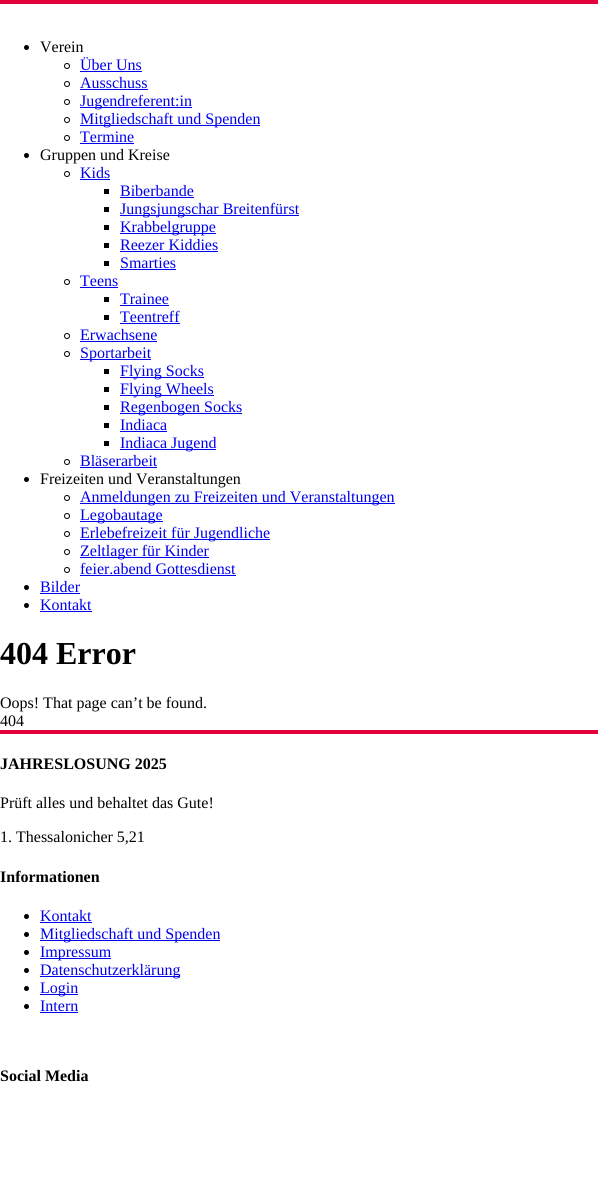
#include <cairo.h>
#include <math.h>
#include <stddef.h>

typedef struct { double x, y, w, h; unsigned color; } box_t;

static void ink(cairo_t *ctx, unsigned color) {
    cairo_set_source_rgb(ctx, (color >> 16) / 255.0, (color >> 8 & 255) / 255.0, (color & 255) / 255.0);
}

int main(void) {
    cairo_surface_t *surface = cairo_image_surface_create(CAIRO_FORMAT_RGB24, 598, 1182);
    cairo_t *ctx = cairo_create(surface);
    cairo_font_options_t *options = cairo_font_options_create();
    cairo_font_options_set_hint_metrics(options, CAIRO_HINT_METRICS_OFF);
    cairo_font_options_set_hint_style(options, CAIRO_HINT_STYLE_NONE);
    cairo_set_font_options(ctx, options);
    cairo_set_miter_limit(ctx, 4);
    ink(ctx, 0xFFFFFF);
    cairo_paint(ctx);
    ink(ctx, 0xE40038);
    cairo_rectangle(ctx, 0, 0, 598, 4);
    cairo_fill(ctx);
    ink(ctx, 0x000000);
    cairo_arc(ctx, 26.5, 47.5, 2.5, 0, 2 * M_PI);
    cairo_fill(ctx);
    cairo_select_font_face(ctx, "Liberation Serif", CAIRO_FONT_SLANT_NORMAL, CAIRO_FONT_WEIGHT_NORMAL);
    cairo_set_font_size(ctx, 16);
    cairo_move_to(ctx, 40, 52);
    cairo_show_text(ctx, "Verein");
    cairo_new_path(ctx);
    cairo_arc(ctx, 67, 66, 2.5, 0, 2 * M_PI);
    cairo_set_line_width(ctx, 1);
    cairo_stroke(ctx);
    ink(ctx, 0x0000EE);
    cairo_move_to(ctx, 80, 70);
    cairo_show_text(ctx, "Über Uns");
    cairo_rectangle(ctx, 80, 71, 62, 1);
    cairo_fill(ctx);
    cairo_arc(ctx, 67, 84, 2.5, 0, 2 * M_PI);
    ink(ctx, 0x000000);
    cairo_stroke(ctx);
    ink(ctx, 0x0000EE);
    cairo_move_to(ctx, 80, 88);
    cairo_show_text(ctx, "Ausschuss");
    cairo_rectangle(ctx, 80, 89, 68, 1);
    cairo_fill(ctx);
    cairo_arc(ctx, 67, 102, 2.5, 0, 2 * M_PI);
    ink(ctx, 0x000000);
    cairo_stroke(ctx);
    ink(ctx, 0x0000EE);
    cairo_rectangle(ctx, 80, 107, 112, 1);
    cairo_fill(ctx);
    cairo_move_to(ctx, 80, 106);
    cairo_show_text(ctx, "Jugendreferent:in");
    cairo_new_path(ctx);
    cairo_arc(ctx, 67, 120, 2.5, 0, 2 * M_PI);
    ink(ctx, 0x000000);
    cairo_stroke(ctx);
    ink(ctx, 0x0000EE);
    cairo_rectangle(ctx, 80, 125, 180, 1);
    cairo_fill(ctx);
    cairo_move_to(ctx, 80, 124);
    cairo_show_text(ctx, "Mitgliedschaft und Spenden");
    cairo_new_path(ctx);
    cairo_arc(ctx, 67, 138, 2.5, 0, 2 * M_PI);
    ink(ctx, 0x000000);
    cairo_stroke(ctx);
    ink(ctx, 0x0000EE);
    cairo_move_to(ctx, 80, 142);
    cairo_show_text(ctx, "Termine");
    cairo_rectangle(ctx, 80, 143, 54, 1);
    cairo_fill(ctx);
    ink(ctx, 0x000000);
    cairo_arc(ctx, 26.5, 155.5, 2.5, 0, 2 * M_PI);
    cairo_fill(ctx);
    cairo_move_to(ctx, 40, 160);
    cairo_show_text(ctx, "Gruppen und Kreise");
    cairo_new_path(ctx);
    cairo_arc(ctx, 67, 174, 2.5, 0, 2 * M_PI);
    cairo_stroke(ctx);
    ink(ctx, 0x0000EE);
    cairo_move_to(ctx, 80, 178);
    cairo_show_text(ctx, "Kids");
    cairo_rectangle(ctx, 80, 179, 30, 1);
    cairo_fill(ctx);
    ink(ctx, 0x000000);
    cairo_rectangle(ctx, 104, 189, 5, 5);
    cairo_fill(ctx);
    ink(ctx, 0x0000EE);
    cairo_move_to(ctx, 120, 196);
    cairo_show_text(ctx, "Biberbande");
    {
        static const box_t items[] = {
            {120, 197, 74, 1, 0x0000EE},
            {104, 207, 5, 5, 0x000000},
            {120, 215, 179, 1, 0x0000EE},
        };
        for (size_t i = 0; i < sizeof items / sizeof *items; i++) {
            ink(ctx, items[i].color);
            cairo_rectangle(ctx, items[i].x, items[i].y, items[i].w, items[i].h);
            cairo_fill(ctx);
        }
    }
    cairo_move_to(ctx, 120, 214);
    cairo_show_text(ctx, "Jungsjungschar Breitenfürst");
    ink(ctx, 0x000000);
    cairo_rectangle(ctx, 104, 225, 5, 5);
    cairo_fill(ctx);
    ink(ctx, 0x0000EE);
    cairo_rectangle(ctx, 120, 233, 96, 1);
    cairo_fill(ctx);
    cairo_move_to(ctx, 120, 232);
    cairo_show_text(ctx, "Krabbelgruppe");
    ink(ctx, 0x000000);
    cairo_rectangle(ctx, 104, 243, 5, 5);
    cairo_fill(ctx);
    ink(ctx, 0x0000EE);
    cairo_move_to(ctx, 120, 250);
    cairo_show_text(ctx, "Reezer Kiddies");
    cairo_rectangle(ctx, 120, 251, 98, 1);
    cairo_fill(ctx);
    ink(ctx, 0x000000);
    cairo_rectangle(ctx, 104, 261, 5, 5);
    cairo_fill(ctx);
    ink(ctx, 0x0000EE);
    cairo_move_to(ctx, 120, 268);
    cairo_show_text(ctx, "Smarties");
    cairo_rectangle(ctx, 120, 269, 56, 1);
    cairo_fill(ctx);
    cairo_arc(ctx, 67, 282, 2.5, 0, 2 * M_PI);
    ink(ctx, 0x000000);
    cairo_stroke(ctx);
    ink(ctx, 0x0000EE);
    cairo_move_to(ctx, 80, 286);
    cairo_show_text(ctx, "Teens");
    cairo_rectangle(ctx, 80, 287, 38, 1);
    cairo_fill(ctx);
    ink(ctx, 0x000000);
    cairo_rectangle(ctx, 104, 297, 5, 5);
    cairo_fill(ctx);
    ink(ctx, 0x0000EE);
    cairo_move_to(ctx, 120, 304);
    cairo_show_text(ctx, "Trainee");
    cairo_rectangle(ctx, 120, 305, 49, 1);
    cairo_fill(ctx);
    ink(ctx, 0x000000);
    cairo_rectangle(ctx, 104, 315, 5, 5);
    cairo_fill(ctx);
    ink(ctx, 0x0000EE);
    cairo_move_to(ctx, 120, 322);
    cairo_show_text(ctx, "Teentreff");
    cairo_rectangle(ctx, 120, 323, 60, 1);
    cairo_fill(ctx);
    cairo_arc(ctx, 67, 336, 2.5, 0, 2 * M_PI);
    ink(ctx, 0x000000);
    cairo_stroke(ctx);
    ink(ctx, 0x0000EE);
    cairo_move_to(ctx, 80, 340);
    cairo_show_text(ctx, "Erwachsene");
    cairo_rectangle(ctx, 80, 341, 77, 1);
    cairo_fill(ctx);
    cairo_arc(ctx, 67, 354, 2.5, 0, 2 * M_PI);
    ink(ctx, 0x000000);
    cairo_stroke(ctx);
    ink(ctx, 0x0000EE);
    cairo_rectangle(ctx, 80, 359, 71, 1);
    cairo_fill(ctx);
    cairo_move_to(ctx, 80, 358);
    cairo_show_text(ctx, "Sportarbeit");
    ink(ctx, 0x000000);
    cairo_rectangle(ctx, 104, 369, 5, 5);
    cairo_fill(ctx);
    ink(ctx, 0x0000EE);
    cairo_rectangle(ctx, 120, 377, 84, 1);
    cairo_fill(ctx);
    cairo_move_to(ctx, 120, 376);
    cairo_show_text(ctx, "Flying Socks");
    ink(ctx, 0x000000);
    cairo_rectangle(ctx, 104, 387, 5, 5);
    cairo_fill(ctx);
    ink(ctx, 0x0000EE);
    cairo_rectangle(ctx, 120, 395, 94, 1);
    cairo_fill(ctx);
    cairo_move_to(ctx, 120, 394);
    cairo_show_text(ctx, "Flying Wheels");
    ink(ctx, 0x000000);
    cairo_rectangle(ctx, 104, 405, 5, 5);
    cairo_fill(ctx);
    ink(ctx, 0x0000EE);
    cairo_rectangle(ctx, 120, 413, 122, 1);
    cairo_fill(ctx);
    cairo_move_to(ctx, 120, 412);
    cairo_show_text(ctx, "Regenbogen Socks");
    ink(ctx, 0x000000);
    cairo_rectangle(ctx, 104, 423, 5, 5);
    cairo_fill(ctx);
    ink(ctx, 0x0000EE);
    cairo_move_to(ctx, 120, 430);
    cairo_show_text(ctx, "Indiaca");
    {
        static const box_t items[] = {
            {120, 431, 47, 1, 0x0000EE},
            {104, 441, 5, 5, 0x000000},
            {120, 449, 96, 1, 0x0000EE},
        };
        for (size_t i = 0; i < sizeof items / sizeof *items; i++) {
            ink(ctx, items[i].color);
            cairo_rectangle(ctx, items[i].x, items[i].y, items[i].w, items[i].h);
            cairo_fill(ctx);
        }
    }
    cairo_move_to(ctx, 120, 448);
    cairo_show_text(ctx, "Indiaca Jugend");
    cairo_new_path(ctx);
    cairo_arc(ctx, 67, 462, 2.5, 0, 2 * M_PI);
    ink(ctx, 0x000000);
    cairo_stroke(ctx);
    ink(ctx, 0x0000EE);
    cairo_move_to(ctx, 80, 466);
    cairo_show_text(ctx, "Bläserarbeit");
    cairo_rectangle(ctx, 80, 467, 77, 1);
    cairo_fill(ctx);
    ink(ctx, 0x000000);
    cairo_arc(ctx, 26.5, 479.5, 2.5, 0, 2 * M_PI);
    cairo_fill(ctx);
    cairo_move_to(ctx, 40, 484);
    cairo_show_text(ctx, "Freizeiten und Veranstaltungen");
    cairo_new_path(ctx);
    cairo_arc(ctx, 67, 498, 2.5, 0, 2 * M_PI);
    cairo_stroke(ctx);
    ink(ctx, 0x0000EE);
    cairo_rectangle(ctx, 80, 503, 315, 1);
    cairo_fill(ctx);
    cairo_move_to(ctx, 80, 502);
    cairo_show_text(ctx, "Anmeldungen zu Freizeiten und Veranstaltungen");
    cairo_new_path(ctx);
    cairo_arc(ctx, 67, 516, 2.5, 0, 2 * M_PI);
    ink(ctx, 0x000000);
    cairo_stroke(ctx);
    ink(ctx, 0x0000EE);
    cairo_rectangle(ctx, 80, 521, 83, 1);
    cairo_fill(ctx);
    cairo_move_to(ctx, 80, 520);
    cairo_show_text(ctx, "Legobautage");
    cairo_new_path(ctx);
    cairo_arc(ctx, 67, 534, 2.5, 0, 2 * M_PI);
    ink(ctx, 0x000000);
    cairo_stroke(ctx);
    ink(ctx, 0x0000EE);
    cairo_rectangle(ctx, 80, 539, 190, 1);
    cairo_fill(ctx);
    cairo_move_to(ctx, 80, 538);
    cairo_show_text(ctx, "Erlebefreizeit für Jugendliche");
    cairo_new_path(ctx);
    cairo_arc(ctx, 67, 552, 2.5, 0, 2 * M_PI);
    ink(ctx, 0x000000);
    cairo_stroke(ctx);
    ink(ctx, 0x0000EE);
    cairo_rectangle(ctx, 80, 557, 129, 1);
    cairo_fill(ctx);
    cairo_move_to(ctx, 80, 556);
    cairo_show_text(ctx, "Zeltlager für Kinder");
    cairo_new_path(ctx);
    cairo_arc(ctx, 67, 570, 2.5, 0, 2 * M_PI);
    ink(ctx, 0x000000);
    cairo_stroke(ctx);
    ink(ctx, 0x0000EE);
    cairo_move_to(ctx, 80, 574);
    cairo_show_text(ctx, "feier.abend Gottesdienst");
    cairo_rectangle(ctx, 80, 575, 156, 1);
    cairo_fill(ctx);
    ink(ctx, 0x000000);
    cairo_arc(ctx, 26.5, 587.5, 2.5, 0, 2 * M_PI);
    cairo_fill(ctx);
    ink(ctx, 0x0000EE);
    cairo_move_to(ctx, 40, 592);
    cairo_show_text(ctx, "Bilder");
    cairo_rectangle(ctx, 40, 593, 40, 1);
    cairo_fill(ctx);
    ink(ctx, 0x000000);
    cairo_arc(ctx, 26.5, 605.5, 2.5, 0, 2 * M_PI);
    cairo_fill(ctx);
    ink(ctx, 0x0000EE);
    cairo_move_to(ctx, 40, 610);
    cairo_show_text(ctx, "Kontakt");
    cairo_rectangle(ctx, 40, 611, 52, 1);
    cairo_fill(ctx);
    cairo_select_font_face(ctx, "Liberation Serif", CAIRO_FONT_SLANT_NORMAL, CAIRO_FONT_WEIGHT_BOLD);
    cairo_set_font_size(ctx, 32);
    ink(ctx, 0x000000);
    cairo_move_to(ctx, 0, 664);
    cairo_show_text(ctx, "404 Error");
    cairo_select_font_face(ctx, "Liberation Serif", CAIRO_FONT_SLANT_NORMAL, CAIRO_FONT_WEIGHT_NORMAL);
    cairo_set_font_size(ctx, 16);
    cairo_move_to(ctx, 0, 708);
    cairo_show_text(ctx, "Oops! That page can’t be found.");
    cairo_move_to(ctx, 0, 726);
    cairo_show_text(ctx, "404");
    ink(ctx, 0xE40038);
    cairo_rectangle(ctx, 0, 730, 598, 4);
    cairo_fill(ctx);
    cairo_select_font_face(ctx, "Liberation Serif", CAIRO_FONT_SLANT_NORMAL, CAIRO_FONT_WEIGHT_BOLD);
    ink(ctx, 0x000000);
    cairo_move_to(ctx, 0, 769);
    cairo_show_text(ctx, "JAHRESLOSUNG 2025");
    cairo_select_font_face(ctx, "Liberation Serif", CAIRO_FONT_SLANT_NORMAL, CAIRO_FONT_WEIGHT_NORMAL);
    cairo_move_to(ctx, 0, 808);
    cairo_show_text(ctx, "Prüft alles und behaltet das Gute!");
    cairo_move_to(ctx, 0, 842);
    cairo_show_text(ctx, "1. Thessalonicher 5,21");
    cairo_select_font_face(ctx, "Liberation Serif", CAIRO_FONT_SLANT_NORMAL, CAIRO_FONT_WEIGHT_BOLD);
    cairo_move_to(ctx, 0, 882);
    cairo_show_text(ctx, "Informationen");
    cairo_new_path(ctx);
    cairo_arc(ctx, 26.5, 916.5, 2.5, 0, 2 * M_PI);
    cairo_fill(ctx);
    cairo_select_font_face(ctx, "Liberation Serif", CAIRO_FONT_SLANT_NORMAL, CAIRO_FONT_WEIGHT_NORMAL);
    ink(ctx, 0x0000EE);
    cairo_move_to(ctx, 40, 921);
    cairo_show_text(ctx, "Kontakt");
    cairo_rectangle(ctx, 40, 922, 52, 1);
    cairo_fill(ctx);
    ink(ctx, 0x000000);
    cairo_arc(ctx, 26.5, 934.5, 2.5, 0, 2 * M_PI);
    cairo_fill(ctx);
    ink(ctx, 0x0000EE);
    cairo_rectangle(ctx, 40, 940, 180, 1);
    cairo_fill(ctx);
    cairo_move_to(ctx, 40, 939);
    cairo_show_text(ctx, "Mitgliedschaft und Spenden");
    ink(ctx, 0x000000);
    cairo_new_path(ctx);
    cairo_arc(ctx, 26.5, 952.5, 2.5, 0, 2 * M_PI);
    cairo_fill(ctx);
    ink(ctx, 0x0000EE);
    cairo_rectangle(ctx, 40, 958, 71, 1);
    cairo_fill(ctx);
    cairo_move_to(ctx, 40, 957);
    cairo_show_text(ctx, "Impressum");
    ink(ctx, 0x000000);
    cairo_new_path(ctx);
    cairo_arc(ctx, 26.5, 970.5, 2.5, 0, 2 * M_PI);
    cairo_fill(ctx);
    ink(ctx, 0x0000EE);
    cairo_rectangle(ctx, 40, 976, 140, 1);
    cairo_fill(ctx);
    cairo_move_to(ctx, 40, 975);
    cairo_show_text(ctx, "Datenschutzerklärung");
    ink(ctx, 0x000000);
    cairo_new_path(ctx);
    cairo_arc(ctx, 26.5, 988.5, 2.5, 0, 2 * M_PI);
    cairo_fill(ctx);
    ink(ctx, 0x0000EE);
    cairo_rectangle(ctx, 40, 994, 38, 1);
    cairo_fill(ctx);
    cairo_move_to(ctx, 40, 993);
    cairo_show_text(ctx, "Login");
    ink(ctx, 0x000000);
    cairo_new_path(ctx);
    cairo_arc(ctx, 26.5, 1006.5, 2.5, 0, 2 * M_PI);
    cairo_fill(ctx);
    ink(ctx, 0x0000EE);
    cairo_move_to(ctx, 40, 1011);
    cairo_show_text(ctx, "Intern");
    cairo_rectangle(ctx, 40, 1012, 38, 1);
    cairo_fill(ctx);
    cairo_select_font_face(ctx, "Liberation Serif", CAIRO_FONT_SLANT_NORMAL, CAIRO_FONT_WEIGHT_BOLD);
    ink(ctx, 0x000000);
    cairo_move_to(ctx, 0, 1081);
    cairo_show_text(ctx, "Social Media");
    cairo_surface_write_to_png(surface, "image.png");
    cairo_font_options_destroy(options);
    cairo_destroy(ctx);
    cairo_surface_destroy(surface);
    return 0;
}
